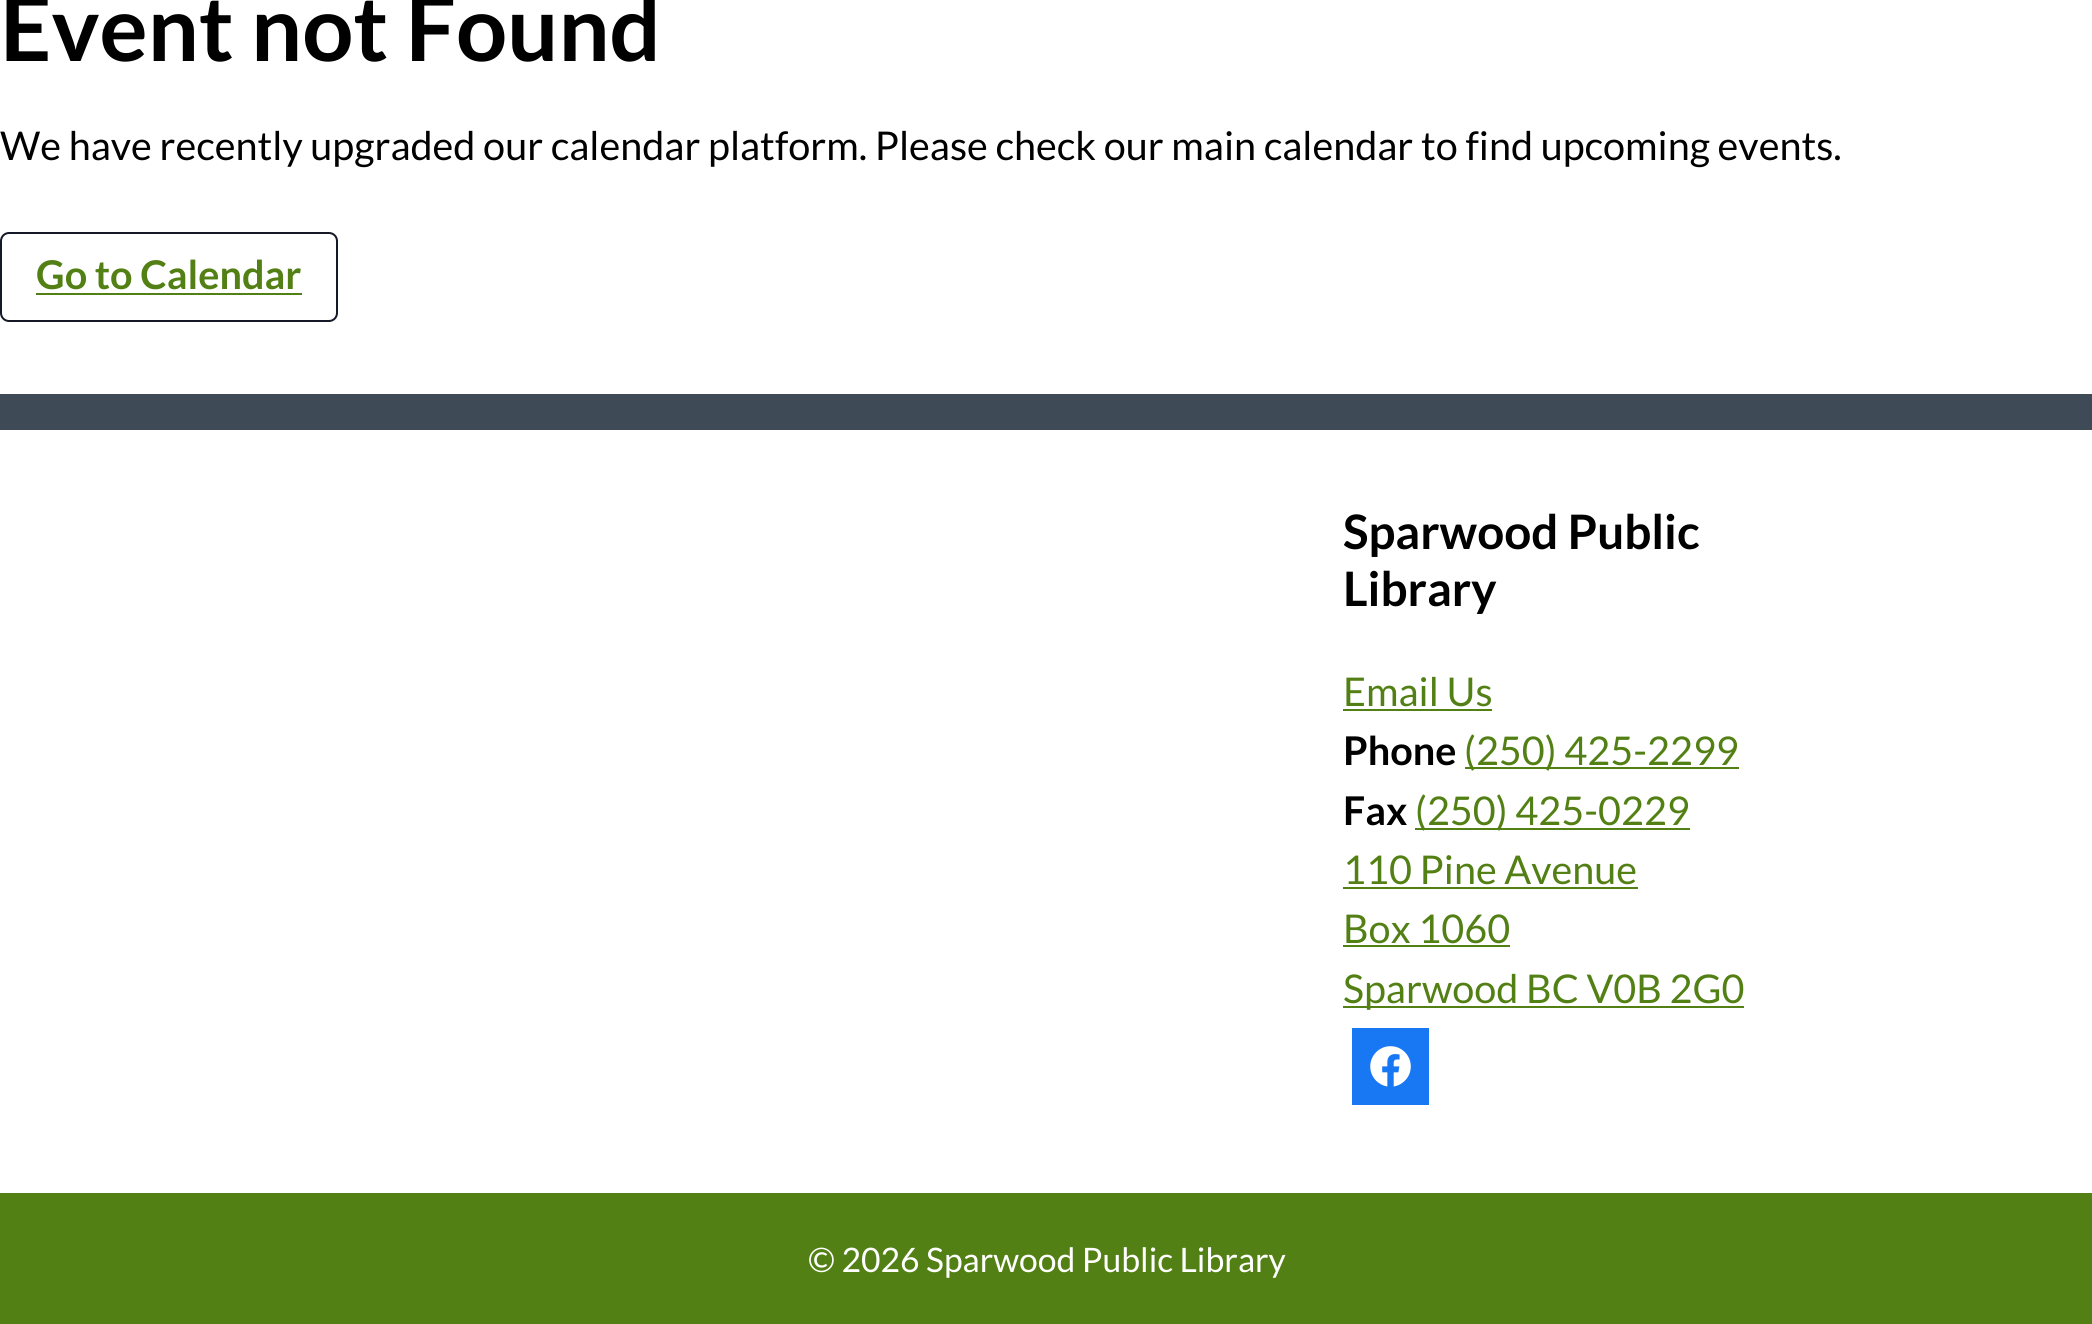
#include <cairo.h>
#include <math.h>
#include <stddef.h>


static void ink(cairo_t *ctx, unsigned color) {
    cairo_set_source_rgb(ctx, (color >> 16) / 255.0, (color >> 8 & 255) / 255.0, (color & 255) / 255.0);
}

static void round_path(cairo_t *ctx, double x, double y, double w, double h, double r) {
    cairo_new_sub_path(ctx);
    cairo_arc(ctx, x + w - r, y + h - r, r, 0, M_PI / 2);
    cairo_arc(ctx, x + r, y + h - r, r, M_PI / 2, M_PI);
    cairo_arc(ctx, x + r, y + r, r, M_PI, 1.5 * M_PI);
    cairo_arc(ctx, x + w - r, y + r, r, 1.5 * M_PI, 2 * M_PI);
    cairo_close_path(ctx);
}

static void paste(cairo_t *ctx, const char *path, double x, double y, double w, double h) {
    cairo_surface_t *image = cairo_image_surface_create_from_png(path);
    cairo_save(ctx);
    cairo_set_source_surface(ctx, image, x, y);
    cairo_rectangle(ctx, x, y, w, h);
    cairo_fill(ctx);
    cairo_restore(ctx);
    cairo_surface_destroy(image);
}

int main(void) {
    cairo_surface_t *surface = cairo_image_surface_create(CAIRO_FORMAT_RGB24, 2092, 1324);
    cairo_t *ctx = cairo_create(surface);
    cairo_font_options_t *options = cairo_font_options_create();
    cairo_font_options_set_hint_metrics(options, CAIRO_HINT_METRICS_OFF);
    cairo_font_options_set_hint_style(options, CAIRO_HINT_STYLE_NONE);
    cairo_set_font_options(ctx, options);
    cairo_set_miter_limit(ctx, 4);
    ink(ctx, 0xFFFFFF);
    cairo_paint(ctx);
    cairo_select_font_face(ctx, "Lato", CAIRO_FONT_SLANT_NORMAL, CAIRO_FONT_WEIGHT_BOLD);
    cairo_set_font_size(ctx, 90);
    ink(ctx, 0x000000);
    cairo_move_to(ctx, 0, 61);
    cairo_show_text(ctx, "Event not Found");
    cairo_select_font_face(ctx, "Lato", CAIRO_FONT_SLANT_NORMAL, CAIRO_FONT_WEIGHT_NORMAL);
    cairo_set_font_size(ctx, 39.6);
    cairo_move_to(ctx, 0, 160);
    cairo_show_text(ctx, "We have recently upgraded our calendar platform. Please check our main calendar to find upcoming events.");
    round_path(ctx, 1, 233, 336, 88, 8);
    ink(ctx, 0x141827);
    cairo_stroke(ctx);
    cairo_select_font_face(ctx, "Lato", CAIRO_FONT_SLANT_NORMAL, CAIRO_FONT_WEIGHT_BOLD);
    ink(ctx, 0x538014);
    cairo_move_to(ctx, 36, 289);
    cairo_show_text(ctx, "Go to Calendar");
    cairo_rectangle(ctx, 36, 293, 266, 2);
    cairo_fill(ctx);
    ink(ctx, 0x3E4A55);
    cairo_rectangle(ctx, 0, 394, 2092, 36);
    cairo_fill(ctx);
    cairo_set_font_size(ctx, 47.5);
    ink(ctx, 0x000000);
    cairo_move_to(ctx, 1343, 549);
    cairo_show_text(ctx, "Sparwood Public");
    cairo_move_to(ctx, 1343, 606);
    cairo_show_text(ctx, "Library");
    cairo_select_font_face(ctx, "Lato", CAIRO_FONT_SLANT_NORMAL, CAIRO_FONT_WEIGHT_NORMAL);
    cairo_set_font_size(ctx, 39.6);
    ink(ctx, 0x538014);
    cairo_move_to(ctx, 1343, 706);
    cairo_show_text(ctx, "Email Us");
    cairo_rectangle(ctx, 1343, 709, 149, 2);
    cairo_fill(ctx);
    cairo_select_font_face(ctx, "Lato", CAIRO_FONT_SLANT_NORMAL, CAIRO_FONT_WEIGHT_BOLD);
    ink(ctx, 0x000000);
    cairo_move_to(ctx, 1343, 765);
    cairo_show_text(ctx, "Phone");
    ink(ctx, 0x538014);
    cairo_rectangle(ctx, 1465, 767, 274, 2);
    cairo_fill(ctx);
    cairo_select_font_face(ctx, "Lato", CAIRO_FONT_SLANT_NORMAL, CAIRO_FONT_WEIGHT_NORMAL);
    cairo_move_to(ctx, 1464, 765);
    cairo_show_text(ctx, "(250) 425-2299");
    cairo_select_font_face(ctx, "Lato", CAIRO_FONT_SLANT_NORMAL, CAIRO_FONT_WEIGHT_BOLD);
    ink(ctx, 0x000000);
    cairo_move_to(ctx, 1343, 825);
    cairo_show_text(ctx, "Fax");
    ink(ctx, 0x538014);
    cairo_rectangle(ctx, 1415, 828, 275, 2);
    cairo_fill(ctx);
    cairo_select_font_face(ctx, "Lato", CAIRO_FONT_SLANT_NORMAL, CAIRO_FONT_WEIGHT_NORMAL);
    cairo_move_to(ctx, 1415, 825);
    cairo_show_text(ctx, "(250) 425-0229");
    cairo_move_to(ctx, 1343, 884);
    cairo_show_text(ctx, "110 Pine Avenue");
    cairo_rectangle(ctx, 1343, 887, 295, 2);
    cairo_fill(ctx);
    cairo_move_to(ctx, 1343, 943);
    cairo_show_text(ctx, "Box 1060");
    cairo_rectangle(ctx, 1343, 945, 167, 2);
    cairo_fill(ctx);
    cairo_rectangle(ctx, 1343, 1006, 401, 2);
    cairo_fill(ctx);
    cairo_move_to(ctx, 1343, 1003);
    cairo_show_text(ctx, "Sparwood BC V0B 2G0");
    ink(ctx, 0x1877F2);
    cairo_rectangle(ctx, 1352, 1028, 77, 77);
    cairo_fill(ctx);
    paste(ctx, "media/1.png", 1370, 1046, 41, 41);
    ink(ctx, 0x538014);
    cairo_rectangle(ctx, 0, 1193, 2092, 131);
    cairo_fill(ctx);
    cairo_set_font_size(ctx, 33.7);
    ink(ctx, 0xFFFFFF);
    cairo_move_to(ctx, 808, 1272);
    cairo_show_text(ctx, "© 2026 Sparwood Public Library");
    cairo_surface_write_to_png(surface, "image.png");
    cairo_font_options_destroy(options);
    cairo_destroy(ctx);
    cairo_surface_destroy(surface);
    return 0;
}
